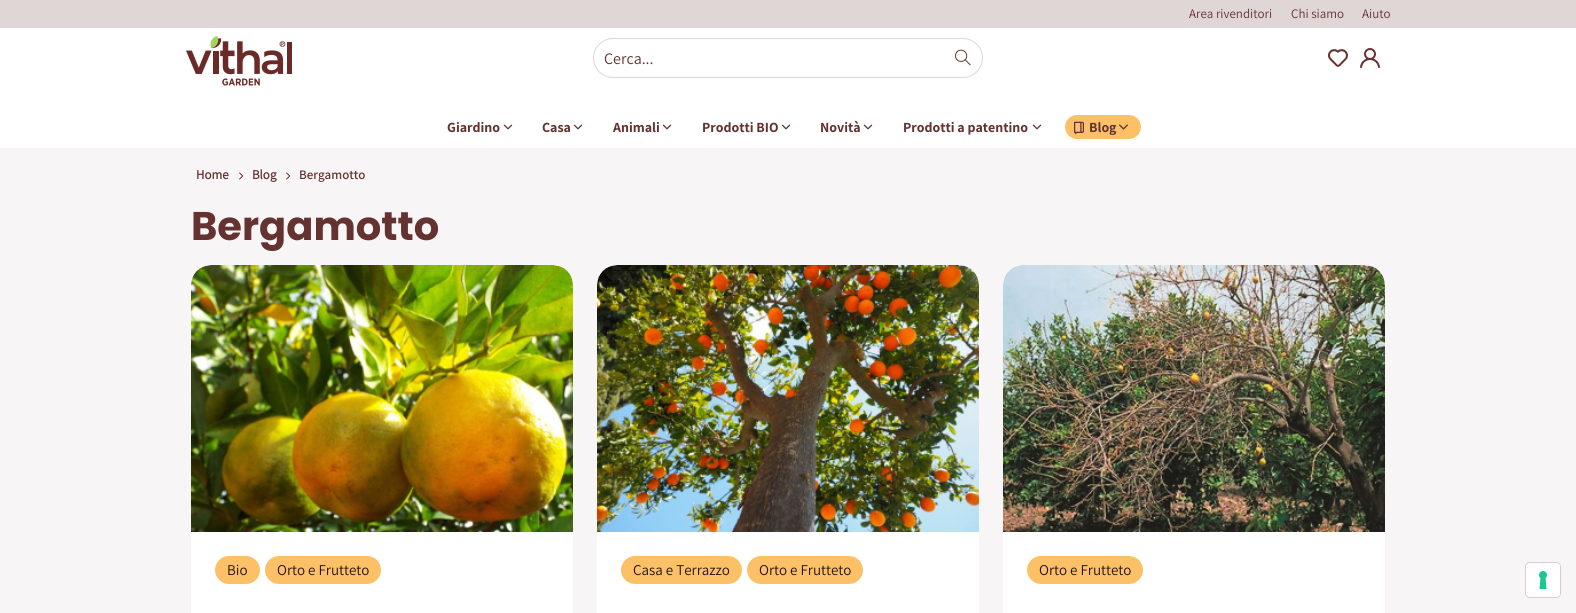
#include <cairo.h>
#include <math.h>
#include <stddef.h>

typedef struct { double x, y; const char *s; } line_t;

static void ink(cairo_t *ctx, unsigned color) {
    cairo_set_source_rgb(ctx, (color >> 16) / 255.0, (color >> 8 & 255) / 255.0, (color & 255) / 255.0);
}

static void round_path(cairo_t *ctx, double x, double y, double w, double h, double r) {
    cairo_new_sub_path(ctx);
    cairo_arc(ctx, x + w - r, y + h - r, r, 0, M_PI / 2);
    cairo_arc(ctx, x + r, y + h - r, r, M_PI / 2, M_PI);
    cairo_arc(ctx, x + r, y + r, r, M_PI, 1.5 * M_PI);
    cairo_arc(ctx, x + w - r, y + r, r, 1.5 * M_PI, 2 * M_PI);
    cairo_close_path(ctx);
}

static void paste(cairo_t *ctx, const char *path, double x, double y, double w, double h) {
    cairo_surface_t *image = cairo_image_surface_create_from_png(path);
    cairo_save(ctx);
    cairo_set_source_surface(ctx, image, x, y);
    cairo_rectangle(ctx, x, y, w, h);
    cairo_fill(ctx);
    cairo_restore(ctx);
    cairo_surface_destroy(image);
}

int main(void) {
    cairo_surface_t *surface = cairo_image_surface_create(CAIRO_FORMAT_RGB24, 1576, 613);
    cairo_t *ctx = cairo_create(surface);
    cairo_font_options_t *options = cairo_font_options_create();
    cairo_font_options_set_hint_metrics(options, CAIRO_HINT_METRICS_OFF);
    cairo_font_options_set_hint_style(options, CAIRO_HINT_STYLE_NONE);
    cairo_set_font_options(ctx, options);
    cairo_set_miter_limit(ctx, 4);
    ink(ctx, 0xF7F5F5);
    cairo_paint(ctx);
    ink(ctx, 0xFFFFFF);
    cairo_rectangle(ctx, 0, 28, 1576, 120);
    cairo_fill(ctx);
    ink(ctx, 0xE0D6D6);
    cairo_rectangle(ctx, 0, 0, 1576, 28);
    cairo_fill(ctx);
    cairo_select_font_face(ctx, "Assistant", CAIRO_FONT_SLANT_NORMAL, CAIRO_FONT_WEIGHT_NORMAL);
    cairo_set_font_size(ctx, 13);
    ink(ctx, 0x633231);
    {
        static const line_t items[] = {
            {1189, 18, "Area rivenditori"},
            {1291, 18, "Chi siamo"},
            {1362, 18, "Aiuto"},
        };
        for (size_t i = 0; i < sizeof items / sizeof *items; i++) {
            cairo_move_to(ctx, items[i].x, items[i].y);
            cairo_show_text(ctx, items[i].s);
        }
    }
    paste(ctx, "media/1.png", 186, 36, 106, 50);
    round_path(ctx, 593.5, 38.5, 389, 39, 19.5);
    ink(ctx, 0xE0D6D6);
    cairo_set_line_width(ctx, 1);
    cairo_stroke(ctx);
    cairo_set_font_size(ctx, 16);
    ink(ctx, 0x633231);
    cairo_move_to(ctx, 604, 64);
    cairo_show_text(ctx, "Cerca...");
    paste(ctx, "media/2.png", 955, 49, 16, 17);
    paste(ctx, "media/3.png", 1328, 49, 20, 18);
    paste(ctx, "media/4.png", 1360, 48, 20, 20);
    paste(ctx, "media/5.png", 503, 124, 10, 6);
    cairo_select_font_face(ctx, "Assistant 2", CAIRO_FONT_SLANT_NORMAL, CAIRO_FONT_WEIGHT_BOLD);
    cairo_set_font_size(ctx, 14);
    cairo_move_to(ctx, 447, 132);
    cairo_show_text(ctx, "Giardino");
    paste(ctx, "media/5.png", 573, 124, 10, 6);
    cairo_move_to(ctx, 542, 132);
    cairo_show_text(ctx, "Casa");
    paste(ctx, "media/5.png", 662, 124, 10, 6);
    cairo_move_to(ctx, 613, 132);
    cairo_show_text(ctx, "Animali");
    paste(ctx, "media/5.png", 781, 124, 10, 6);
    cairo_move_to(ctx, 702, 132);
    cairo_show_text(ctx, "Prodotti BIO");
    paste(ctx, "media/5.png", 863, 124, 10, 6);
    cairo_move_to(ctx, 820, 132);
    cairo_show_text(ctx, "Novità");
    paste(ctx, "media/5.png", 1032, 124, 10, 6);
    cairo_move_to(ctx, 903, 132);
    cairo_show_text(ctx, "Prodotti a patentino");
    ink(ctx, 0xFCC166);
    round_path(ctx, 1065, 115, 76, 24, 12);
    cairo_fill(ctx);
    paste(ctx, "media/6.png", 1074, 121, 10, 14);
    paste(ctx, "media/7.png", 1119, 124, 9, 6);
    ink(ctx, 0x633231);
    cairo_move_to(ctx, 1089, 132);
    cairo_show_text(ctx, "Blog");
    cairo_select_font_face(ctx, "Assistant", CAIRO_FONT_SLANT_NORMAL, CAIRO_FONT_WEIGHT_BOLD);
    cairo_set_font_size(ctx, 13);
    cairo_move_to(ctx, 196, 179);
    cairo_show_text(ctx, "Home");
    paste(ctx, "media/8.png", 239, 172, 5, 8);
    cairo_move_to(ctx, 252, 179);
    cairo_show_text(ctx, "Blog");
    paste(ctx, "media/8.png", 286, 172, 5, 8);
    cairo_select_font_face(ctx, "Assistant SemiBold", CAIRO_FONT_SLANT_NORMAL, CAIRO_FONT_WEIGHT_NORMAL);
    cairo_move_to(ctx, 299, 179);
    cairo_show_text(ctx, "Bergamotto");
    cairo_select_font_face(ctx, "Poppins", CAIRO_FONT_SLANT_NORMAL, CAIRO_FONT_WEIGHT_BOLD);
    cairo_set_font_size(ctx, 40);
    cairo_move_to(ctx, 191, 240);
    cairo_show_text(ctx, "Bergamotto");
    ink(ctx, 0xFFFFFF);
    round_path(ctx, 191, 265, 382, 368, 20);
    cairo_fill(ctx);
    paste(ctx, "media/9.png", 191, 265, 382, 267);
    ink(ctx, 0xFCC166);
    round_path(ctx, 215, 556, 45, 28, 14);
    cairo_fill(ctx);
    cairo_select_font_face(ctx, "Assistant", CAIRO_FONT_SLANT_NORMAL, CAIRO_FONT_WEIGHT_NORMAL);
    cairo_set_font_size(ctx, 15);
    ink(ctx, 0x241212);
    cairo_move_to(ctx, 227, 575);
    cairo_show_text(ctx, "Bio");
    ink(ctx, 0xFCC166);
    round_path(ctx, 265, 556, 116, 28, 14);
    cairo_fill(ctx);
    ink(ctx, 0x241212);
    cairo_move_to(ctx, 277, 575);
    cairo_show_text(ctx, "Orto e Frutteto");
    ink(ctx, 0xFFFFFF);
    round_path(ctx, 597, 265, 382, 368, 20);
    cairo_fill(ctx);
    paste(ctx, "media/10.png", 597, 265, 382, 267);
    ink(ctx, 0xFCC166);
    round_path(ctx, 621, 556, 121, 28, 14);
    cairo_fill(ctx);
    ink(ctx, 0x241212);
    cairo_move_to(ctx, 633, 575);
    cairo_show_text(ctx, "Casa e Terrazzo");
    ink(ctx, 0xFCC166);
    round_path(ctx, 747, 556, 116, 28, 14);
    cairo_fill(ctx);
    ink(ctx, 0x241212);
    cairo_move_to(ctx, 759, 575);
    cairo_show_text(ctx, "Orto e Frutteto");
    ink(ctx, 0xFFFFFF);
    round_path(ctx, 1003, 265, 382, 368, 20);
    cairo_fill(ctx);
    paste(ctx, "media/11.png", 1003, 265, 382, 267);
    ink(ctx, 0xFCC166);
    round_path(ctx, 1027, 556, 116, 28, 14);
    cairo_fill(ctx);
    ink(ctx, 0x241212);
    cairo_move_to(ctx, 1039, 575);
    cairo_show_text(ctx, "Orto e Frutteto");
    round_path(ctx, 1525.5, 562.5, 35, 35, 4.5);
    ink(ctx, 0xD2D0D0);
    cairo_stroke(ctx);
    ink(ctx, 0xFFFFFF);
    round_path(ctx, 1526, 563, 34, 34, 4);
    cairo_fill(ctx);
    paste(ctx, "media/12.png", 1539, 571, 8, 18);
    cairo_surface_write_to_png(surface, "image.png");
    cairo_font_options_destroy(options);
    cairo_destroy(ctx);
    cairo_surface_destroy(surface);
    return 0;
}
